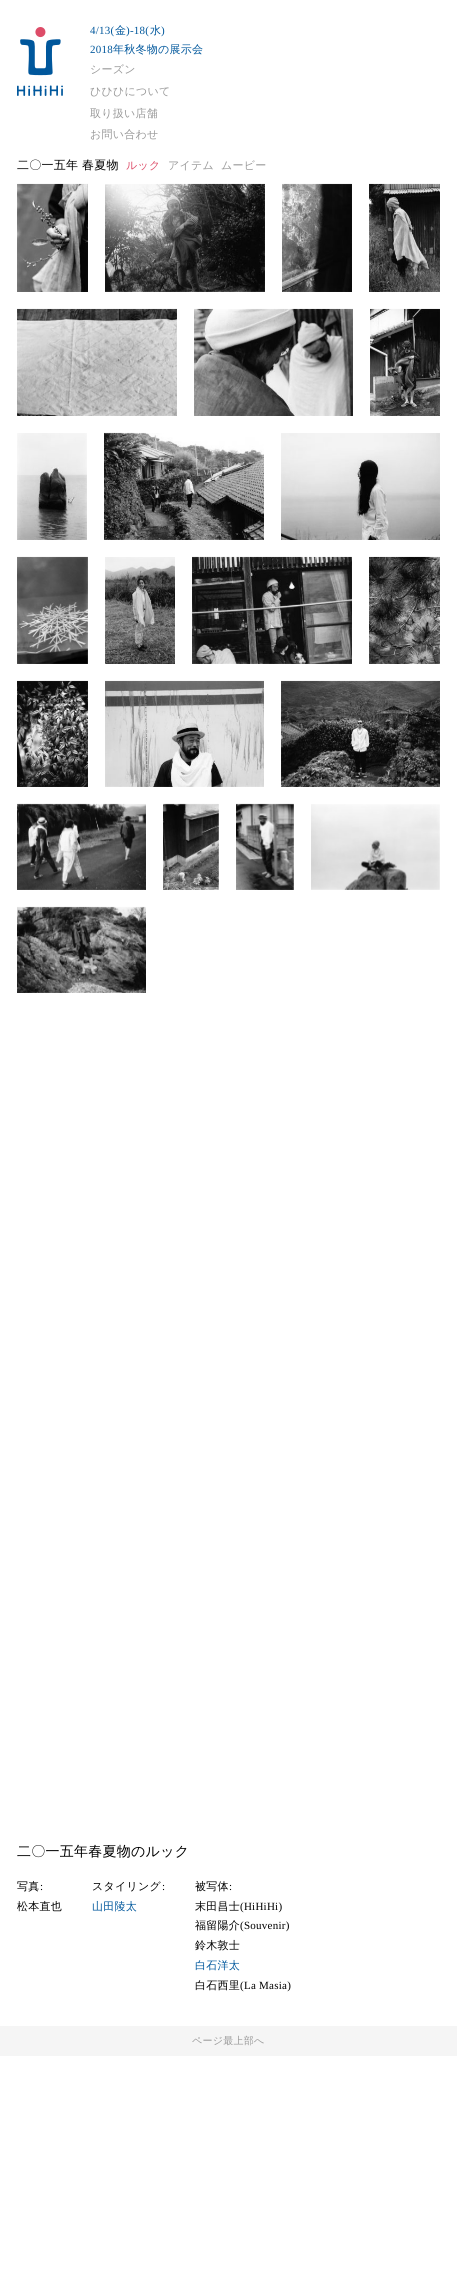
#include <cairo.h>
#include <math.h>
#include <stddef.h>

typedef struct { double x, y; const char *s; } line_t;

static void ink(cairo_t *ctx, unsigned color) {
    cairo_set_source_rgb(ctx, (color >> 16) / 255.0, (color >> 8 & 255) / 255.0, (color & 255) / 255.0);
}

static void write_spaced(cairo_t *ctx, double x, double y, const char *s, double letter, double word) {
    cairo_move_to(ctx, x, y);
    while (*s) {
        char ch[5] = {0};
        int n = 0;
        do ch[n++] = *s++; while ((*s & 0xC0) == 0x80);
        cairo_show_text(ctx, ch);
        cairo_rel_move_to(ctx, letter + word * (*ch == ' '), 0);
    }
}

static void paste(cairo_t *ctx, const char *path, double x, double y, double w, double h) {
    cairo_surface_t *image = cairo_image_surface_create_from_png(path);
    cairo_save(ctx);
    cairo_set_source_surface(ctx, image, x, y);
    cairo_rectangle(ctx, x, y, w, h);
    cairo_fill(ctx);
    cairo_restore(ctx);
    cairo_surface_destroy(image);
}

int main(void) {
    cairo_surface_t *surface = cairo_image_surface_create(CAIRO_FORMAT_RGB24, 457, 2276);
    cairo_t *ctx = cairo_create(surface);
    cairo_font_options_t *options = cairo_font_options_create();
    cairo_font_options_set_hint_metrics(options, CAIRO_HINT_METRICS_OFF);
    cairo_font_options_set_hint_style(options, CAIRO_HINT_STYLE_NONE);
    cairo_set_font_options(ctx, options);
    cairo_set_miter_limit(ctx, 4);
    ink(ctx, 0xFFFFFF);
    cairo_paint(ctx);
    paste(ctx, "media/1.png", 17, 27, 46, 69);
    cairo_select_font_face(ctx, "Liberation Serif", CAIRO_FONT_SLANT_NORMAL, CAIRO_FONT_WEIGHT_NORMAL);
    cairo_set_font_size(ctx, 11);
    ink(ctx, 0x00579C);
    write_spaced(ctx, 90, 34, "4/13(", 0.25, 0);
    cairo_select_font_face(ctx, "WenQuanYi Zen Hei Medium", CAIRO_FONT_SLANT_NORMAL, CAIRO_FONT_WEIGHT_NORMAL);
    write_spaced(ctx, 115, 34, "金", 0.25, 0);
    cairo_select_font_face(ctx, "Liberation Serif", CAIRO_FONT_SLANT_NORMAL, CAIRO_FONT_WEIGHT_NORMAL);
    write_spaced(ctx, 126, 34, ")-18(", 0.25, 0);
    cairo_select_font_face(ctx, "WenQuanYi Zen Hei Medium", CAIRO_FONT_SLANT_NORMAL, CAIRO_FONT_WEIGHT_NORMAL);
    write_spaced(ctx, 150, 34, "水", 0.25, 0);
    cairo_select_font_face(ctx, "Liberation Serif", CAIRO_FONT_SLANT_NORMAL, CAIRO_FONT_WEIGHT_NORMAL);
    write_spaced(ctx, 161, 34, ")", 0.25, 0);
    write_spaced(ctx, 90, 53, "2018", 0.25, 0);
    cairo_select_font_face(ctx, "WenQuanYi Zen Hei Medium", CAIRO_FONT_SLANT_NORMAL, CAIRO_FONT_WEIGHT_NORMAL);
    write_spaced(ctx, 113, 53, "年秋冬物の展示会", 0.25, 0);
    ink(ctx, 0x999999);
    {
        static const line_t items[] = {
            {90, 73, "シーズン"},
            {90, 95, "ひひひについて"},
            {90, 117, "取り扱い店舗"},
            {90, 138, "お問い合わせ"},
        };
        for (size_t i = 0; i < sizeof items / sizeof *items; i++) {
            write_spaced(ctx, items[i].x, items[i].y, items[i].s, 0.25, 0);
        }
    }
    cairo_set_font_size(ctx, 12);
    ink(ctx, 0x000000);
    write_spaced(ctx, 17, 169, "二〇一五年", 0.25, 0);
    write_spaced(ctx, 82, 169, "春夏物", 0.25, 0);
    cairo_set_font_size(ctx, 11);
    ink(ctx, 0xDD4C68);
    write_spaced(ctx, 126, 169, "ルック", 0.25, 0);
    ink(ctx, 0x999999);
    write_spaced(ctx, 168, 169, "アイテム", 0.25, 0);
    write_spaced(ctx, 221, 169, "ムービー", 0.25, 0);
    paste(ctx, "media/2.png", 17, 183, 71, 109);
    paste(ctx, "media/3.png", 105, 183, 160, 109);
    paste(ctx, "media/4.png", 282, 183, 70, 109);
    paste(ctx, "media/5.png", 369, 183, 71, 109);
    paste(ctx, "media/6.png", 17, 308, 160, 108);
    paste(ctx, "media/7.png", 194, 308, 159, 108);
    paste(ctx, "media/8.png", 370, 308, 70, 108);
    paste(ctx, "media/9.png", 17, 433, 70, 107);
    paste(ctx, "media/10.png", 104, 432, 160, 108);
    paste(ctx, "media/11.png", 281, 433, 159, 107);
    paste(ctx, "media/12.png", 17, 556, 71, 108);
    paste(ctx, "media/13.png", 105, 557, 70, 107);
    paste(ctx, "media/14.png", 192, 556, 160, 108);
    paste(ctx, "media/15.png", 369, 556, 71, 108);
    paste(ctx, "media/16.png", 17, 680, 71, 107);
    paste(ctx, "media/17.png", 105, 680, 159, 107);
    paste(ctx, "media/18.png", 281, 680, 159, 107);
    paste(ctx, "media/19.png", 17, 803, 129, 87);
    paste(ctx, "media/20.png", 163, 803, 56, 87);
    paste(ctx, "media/21.png", 236, 803, 58, 87);
    paste(ctx, "media/22.png", 311, 804, 129, 86);
    paste(ctx, "media/23.png", 17, 906, 129, 87);
    cairo_set_font_size(ctx, 14);
    ink(ctx, 0x000000);
    write_spaced(ctx, 17, 1856, "二〇一五年春夏物のルック", 0.25, 0);
    cairo_set_font_size(ctx, 11);
    write_spaced(ctx, 17, 1890, "写真", 0.25, 0);
    cairo_select_font_face(ctx, "Liberation Serif", CAIRO_FONT_SLANT_NORMAL, CAIRO_FONT_WEIGHT_NORMAL);
    write_spaced(ctx, 40, 1890, ":", 0.25, 0);
    cairo_select_font_face(ctx, "WenQuanYi Zen Hei Medium", CAIRO_FONT_SLANT_NORMAL, CAIRO_FONT_WEIGHT_NORMAL);
    write_spaced(ctx, 17, 1910, "松本直也", 0.25, 0);
    write_spaced(ctx, 92, 1890, "スタイリング", 0.25, 0);
    cairo_select_font_face(ctx, "Liberation Serif", CAIRO_FONT_SLANT_NORMAL, CAIRO_FONT_WEIGHT_NORMAL);
    write_spaced(ctx, 162, 1890, ":", 0.25, 0);
    cairo_select_font_face(ctx, "WenQuanYi Zen Hei Medium", CAIRO_FONT_SLANT_NORMAL, CAIRO_FONT_WEIGHT_NORMAL);
    ink(ctx, 0x00579C);
    write_spaced(ctx, 92, 1910, "山田陵太", 0.25, 0);
    ink(ctx, 0x000000);
    write_spaced(ctx, 195, 1890, "被写体", 0.25, 0);
    cairo_select_font_face(ctx, "Liberation Serif", CAIRO_FONT_SLANT_NORMAL, CAIRO_FONT_WEIGHT_NORMAL);
    write_spaced(ctx, 229, 1890, ":", 0.25, 0);
    cairo_select_font_face(ctx, "WenQuanYi Zen Hei Medium", CAIRO_FONT_SLANT_NORMAL, CAIRO_FONT_WEIGHT_NORMAL);
    write_spaced(ctx, 195, 1910, "末田昌士", 0.25, 0);
    cairo_select_font_face(ctx, "Liberation Serif", CAIRO_FONT_SLANT_NORMAL, CAIRO_FONT_WEIGHT_NORMAL);
    write_spaced(ctx, 240, 1910, "(HiHiHi)", 0.25, 0);
    cairo_select_font_face(ctx, "WenQuanYi Zen Hei Medium", CAIRO_FONT_SLANT_NORMAL, CAIRO_FONT_WEIGHT_NORMAL);
    write_spaced(ctx, 195, 1929, "福留陽介", 0.25, 0);
    cairo_select_font_face(ctx, "Liberation Serif", CAIRO_FONT_SLANT_NORMAL, CAIRO_FONT_WEIGHT_NORMAL);
    write_spaced(ctx, 240, 1929, "(Souvenir)", 0.25, 0);
    cairo_select_font_face(ctx, "WenQuanYi Zen Hei Medium", CAIRO_FONT_SLANT_NORMAL, CAIRO_FONT_WEIGHT_NORMAL);
    write_spaced(ctx, 195, 1949, "鈴木敦士", 0.25, 0);
    ink(ctx, 0x00579C);
    write_spaced(ctx, 195, 1969, "白石洋太", 0.25, 0);
    ink(ctx, 0x000000);
    write_spaced(ctx, 195, 1989, "白石西里", 0.25, 0);
    cairo_select_font_face(ctx, "Liberation Serif", CAIRO_FONT_SLANT_NORMAL, CAIRO_FONT_WEIGHT_NORMAL);
    write_spaced(ctx, 240, 1989, "(La Masia)", 0.25, 0);
    ink(ctx, 0xF5F5F5);
    cairo_rectangle(ctx, 0, 2026, 457, 30);
    cairo_fill(ctx);
    cairo_select_font_face(ctx, "WenQuanYi Zen Hei Medium", CAIRO_FONT_SLANT_NORMAL, CAIRO_FONT_WEIGHT_NORMAL);
    cairo_set_font_size(ctx, 10);
    ink(ctx, 0x999999);
    write_spaced(ctx, 192, 2044, "ページ最上部へ", 0.25, 0);
    cairo_surface_write_to_png(surface, "image.png");
    cairo_font_options_destroy(options);
    cairo_destroy(ctx);
    cairo_surface_destroy(surface);
    return 0;
}
